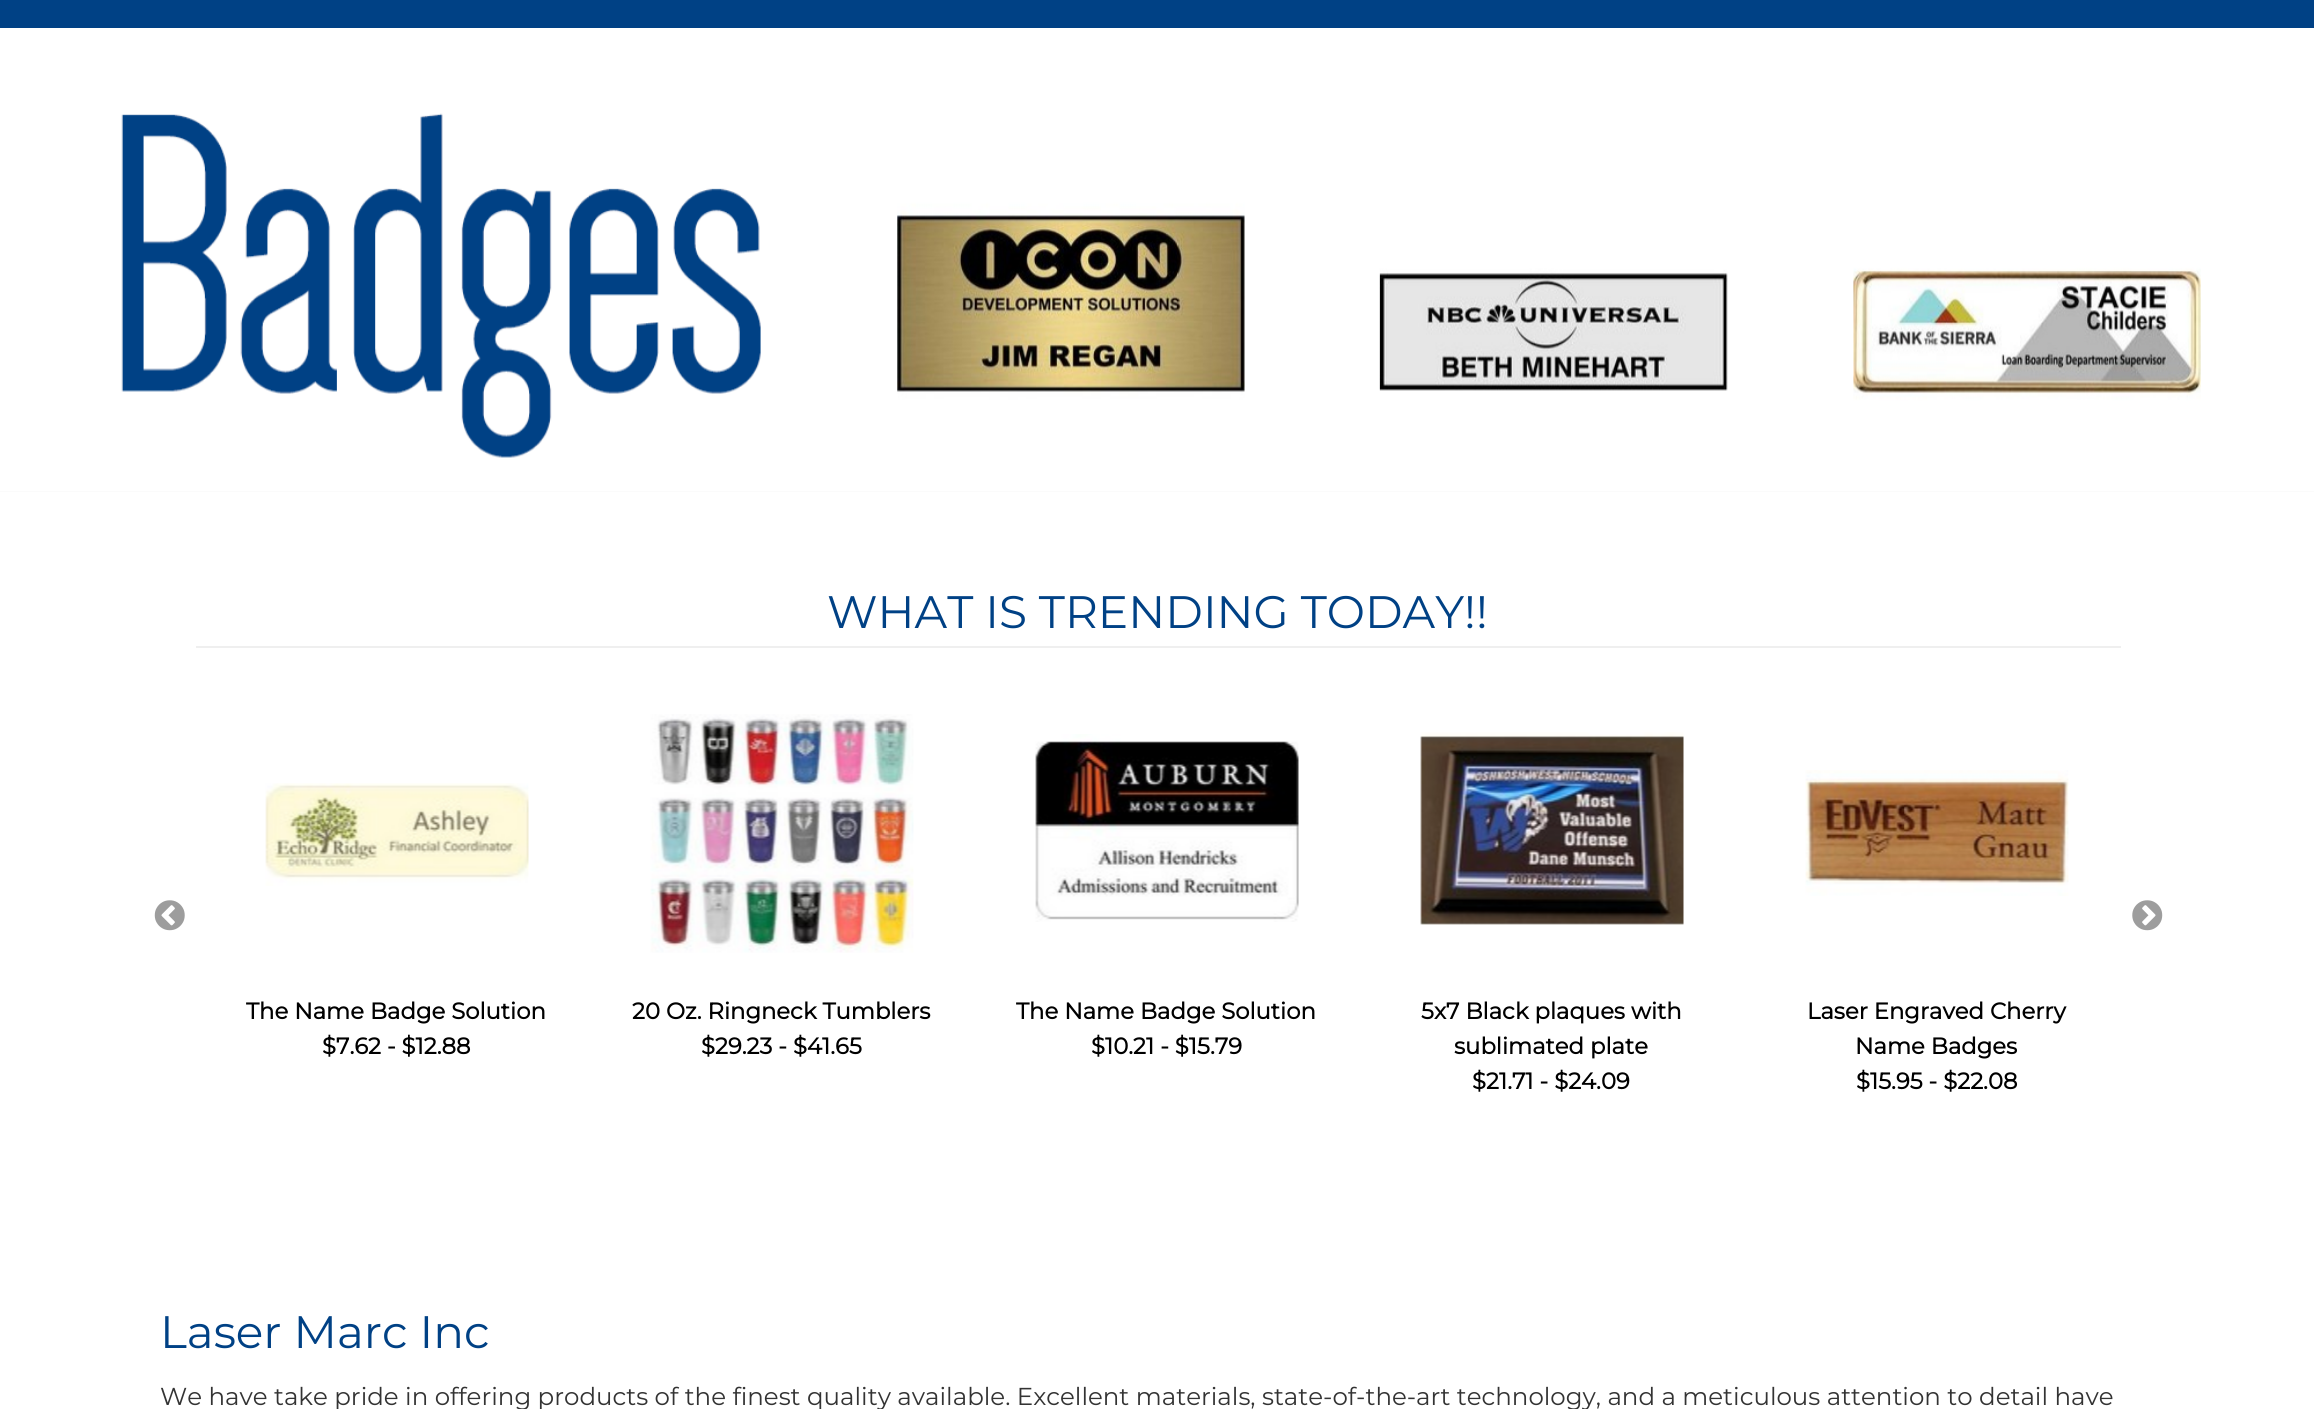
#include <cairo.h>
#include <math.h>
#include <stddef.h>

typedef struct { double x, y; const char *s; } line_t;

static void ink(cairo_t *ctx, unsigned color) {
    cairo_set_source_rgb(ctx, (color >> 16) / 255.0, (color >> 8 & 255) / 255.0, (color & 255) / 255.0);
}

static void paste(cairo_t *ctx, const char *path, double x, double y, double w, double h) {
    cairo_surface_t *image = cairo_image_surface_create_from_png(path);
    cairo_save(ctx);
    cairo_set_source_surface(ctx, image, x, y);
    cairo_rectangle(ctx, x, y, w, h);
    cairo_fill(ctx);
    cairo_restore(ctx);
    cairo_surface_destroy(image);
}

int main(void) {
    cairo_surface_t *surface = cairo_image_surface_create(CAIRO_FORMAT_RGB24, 2314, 1409);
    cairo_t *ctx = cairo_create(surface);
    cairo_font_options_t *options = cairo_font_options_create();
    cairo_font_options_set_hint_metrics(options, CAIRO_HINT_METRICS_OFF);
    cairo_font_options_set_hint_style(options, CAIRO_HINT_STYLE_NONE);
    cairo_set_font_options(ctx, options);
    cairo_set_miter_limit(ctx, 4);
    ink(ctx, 0xF4F4F4);
    cairo_paint(ctx);
    ink(ctx, 0x004185);
    cairo_rectangle(ctx, 0, 0, 2314, 28);
    cairo_fill(ctx);
    paste(ctx, "media/1.png", 0, 28, 2314, 464);
    ink(ctx, 0xFFFFFF);
    cairo_rectangle(ctx, 0, 492, 2314, 917);
    cairo_fill(ctx);
    ink(ctx, 0xEFEFEF);
    cairo_rectangle(ctx, 196, 646, 1925, 2);
    cairo_fill(ctx);
    cairo_select_font_face(ctx, "Montserrat Thin", CAIRO_FONT_SLANT_NORMAL, CAIRO_FONT_WEIGHT_NORMAL);
    cairo_set_font_size(ctx, 45.5);
    ink(ctx, 0x004185);
    cairo_move_to(ctx, 827, 628);
    cairo_show_text(ctx, "WHAT IS TRENDING TODAY!!");
    paste(ctx, "media/2.png", 154, 900, 31, 31);
    paste(ctx, "media/3.png", 2132, 900, 31, 31);
    paste(ctx, "media/4.png", 265, 783, 264, 103);
    cairo_select_font_face(ctx, "Montserrat", CAIRO_FONT_SLANT_NORMAL, CAIRO_FONT_WEIGHT_BOLD);
    cairo_set_font_size(ctx, 22.75);
    ink(ctx, 0x000000);
    cairo_move_to(ctx, 246, 1019);
    cairo_show_text(ctx, "The Name Badge Solution");
    cairo_move_to(ctx, 322, 1054);
    cairo_show_text(ctx, "$7.62 - $12.88");
    paste(ctx, "media/5.png", 650, 714, 264, 239);
    cairo_move_to(ctx, 632, 1019);
    cairo_show_text(ctx, "20 Oz. Ringneck Tumblers");
    cairo_move_to(ctx, 701, 1054);
    cairo_show_text(ctx, "$29.23 - $41.65");
    paste(ctx, "media/6.png", 1035, 734, 264, 188);
    cairo_move_to(ctx, 1016, 1019);
    cairo_show_text(ctx, "The Name Badge Solution");
    cairo_move_to(ctx, 1091, 1054);
    cairo_show_text(ctx, "$10.21 - $15.79");
    paste(ctx, "media/7.png", 1420, 732, 264, 193);
    {
        static const line_t items[] = {
            {1421, 1019, "5x7 Black plaques with"},
            {1454, 1054, "sublimated plate"},
            {1472, 1089, "$21.71 - $24.09"},
        };
        for (size_t i = 0; i < sizeof items / sizeof *items; i++) {
            cairo_move_to(ctx, items[i].x, items[i].y);
            cairo_show_text(ctx, items[i].s);
        }
    }
    paste(ctx, "media/8.png", 1805, 770, 264, 126);
    {
        static const line_t items[] = {
            {1807, 1019, "Laser Engraved Cherry"},
            {1855, 1054, "Name Badges"},
            {1856, 1089, "$15.95 - $22.08"},
        };
        for (size_t i = 0; i < sizeof items / sizeof *items; i++) {
            cairo_move_to(ctx, items[i].x, items[i].y);
            cairo_show_text(ctx, items[i].s);
        }
    }
    cairo_select_font_face(ctx, "Montserrat Thin", CAIRO_FONT_SLANT_NORMAL, CAIRO_FONT_WEIGHT_NORMAL);
    cairo_set_font_size(ctx, 45.5);
    ink(ctx, 0x004185);
    cairo_move_to(ctx, 160, 1348);
    cairo_show_text(ctx, "Laser Marc Inc");
    cairo_set_font_size(ctx, 24.5);
    ink(ctx, 0x333333);
    cairo_move_to(ctx, 160, 1405);
    cairo_show_text(ctx, "We have take pride in offering products of the finest quality available. Excellent materials, state-of-the-art technology, and a meticulous attention to detail have");
    cairo_surface_write_to_png(surface, "image.png");
    cairo_font_options_destroy(options);
    cairo_destroy(ctx);
    cairo_surface_destroy(surface);
    return 0;
}
